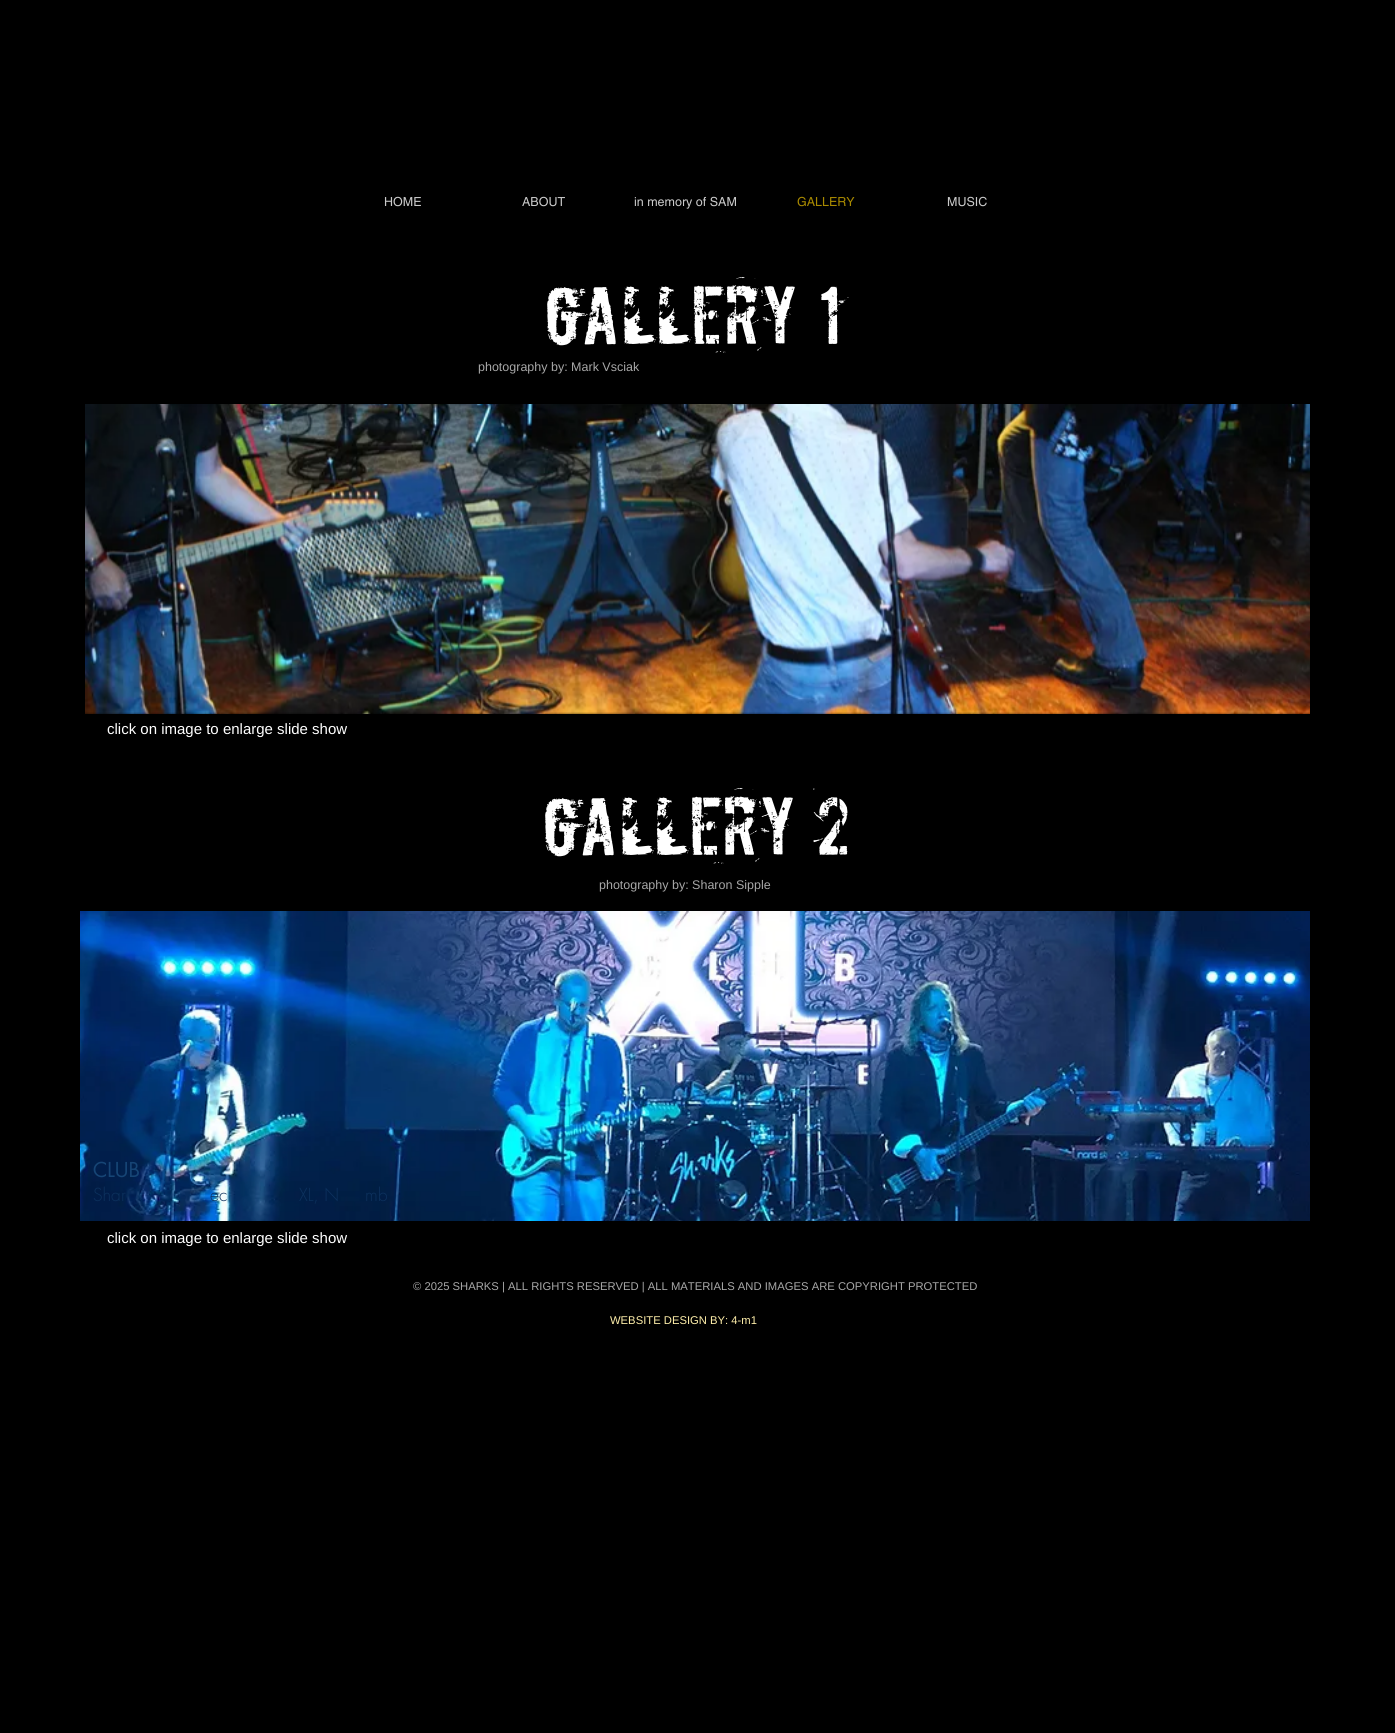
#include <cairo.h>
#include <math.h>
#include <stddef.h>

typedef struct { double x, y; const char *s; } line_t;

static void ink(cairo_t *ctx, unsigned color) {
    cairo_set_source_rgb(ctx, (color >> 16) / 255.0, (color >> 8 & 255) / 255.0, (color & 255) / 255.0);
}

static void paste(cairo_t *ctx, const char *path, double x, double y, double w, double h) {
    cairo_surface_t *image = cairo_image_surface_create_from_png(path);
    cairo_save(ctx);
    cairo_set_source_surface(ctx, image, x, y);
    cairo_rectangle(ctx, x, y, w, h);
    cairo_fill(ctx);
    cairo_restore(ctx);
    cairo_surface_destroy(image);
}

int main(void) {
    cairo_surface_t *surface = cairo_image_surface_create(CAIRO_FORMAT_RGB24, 1395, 1733);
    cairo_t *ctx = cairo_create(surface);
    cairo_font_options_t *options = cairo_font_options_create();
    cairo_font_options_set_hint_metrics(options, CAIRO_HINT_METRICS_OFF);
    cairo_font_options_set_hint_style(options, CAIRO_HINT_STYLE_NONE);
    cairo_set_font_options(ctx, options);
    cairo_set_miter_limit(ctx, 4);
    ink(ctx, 0x000000);
    cairo_paint(ctx);
    cairo_select_font_face(ctx, "helvetica", CAIRO_FONT_SLANT_NORMAL, CAIRO_FONT_WEIGHT_NORMAL);
    cairo_set_font_size(ctx, 12.5);
    ink(ctx, 0xCACACA);
    {
        static const line_t items[] = {
            {384, 206, "HOME"},
            {522, 206, "ABOUT"},
            {634, 206, "in memory of SAM"},
        };
        for (size_t i = 0; i < sizeof items / sizeof *items; i++) {
            cairo_move_to(ctx, items[i].x, items[i].y);
            cairo_show_text(ctx, items[i].s);
        }
    }
    ink(ctx, 0xA98A00);
    cairo_move_to(ctx, 797, 206);
    cairo_show_text(ctx, "GALLERY");
    ink(ctx, 0xCACACA);
    cairo_move_to(ctx, 947, 206);
    cairo_show_text(ctx, "MUSIC");
    cairo_select_font_face(ctx, "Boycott", CAIRO_FONT_SLANT_NORMAL, CAIRO_FONT_WEIGHT_NORMAL);
    cairo_set_font_size(ctx, 68.75);
    ink(ctx, 0xFFFFFF);
    cairo_move_to(ctx, 543, 344);
    cairo_show_text(ctx, "GALLERY 1");
    cairo_select_font_face(ctx, "Liberation Sans", CAIRO_FONT_SLANT_NORMAL, CAIRO_FONT_WEIGHT_NORMAL);
    cairo_set_font_size(ctx, 12.5);
    ink(ctx, 0xA8A8A8);
    cairo_move_to(ctx, 478, 371);
    cairo_show_text(ctx, "photography by: Mark Vsciak");
    paste(ctx, "media/1.png", 85, 404, 1225, 310);
    cairo_set_font_size(ctx, 15);
    ink(ctx, 0xFFFFFF);
    cairo_move_to(ctx, 107, 734);
    cairo_show_text(ctx, "click on image to enlarge slide show");
    cairo_select_font_face(ctx, "Boycott", CAIRO_FONT_SLANT_NORMAL, CAIRO_FONT_WEIGHT_NORMAL);
    cairo_set_font_size(ctx, 68.75);
    cairo_move_to(ctx, 541, 855);
    cairo_show_text(ctx, "GALLERY 2");
    cairo_select_font_face(ctx, "Liberation Sans", CAIRO_FONT_SLANT_NORMAL, CAIRO_FONT_WEIGHT_NORMAL);
    cairo_set_font_size(ctx, 12.5);
    ink(ctx, 0xA8A8A8);
    cairo_move_to(ctx, 599, 889);
    cairo_show_text(ctx, "photography by: Sharon Sipple");
    paste(ctx, "media/2.png", 80, 911, 1230, 310);
    cairo_select_font_face(ctx, "futura", CAIRO_FONT_SLANT_NORMAL, CAIRO_FONT_WEIGHT_NORMAL);
    cairo_set_font_size(ctx, 20);
    ink(ctx, 0x164575);
    cairo_move_to(ctx, 93, 1177);
    cairo_show_text(ctx, "CLUB");
    cairo_select_font_face(ctx, "futura Light", CAIRO_FONT_SLANT_NORMAL, CAIRO_FONT_WEIGHT_NORMAL);
    cairo_set_font_size(ctx, 17.5);
    ink(ctx, 0x0C315D);
    {
        static const line_t items[] = {
            {93, 1201, "Shar"},
            {210, 1201, "ec"},
            {299, 1201, "XL, N"},
            {365, 1201, "mb"},
        };
        for (size_t i = 0; i < sizeof items / sizeof *items; i++) {
            cairo_move_to(ctx, items[i].x, items[i].y);
            cairo_show_text(ctx, items[i].s);
        }
    }
    cairo_select_font_face(ctx, "Liberation Sans", CAIRO_FONT_SLANT_NORMAL, CAIRO_FONT_WEIGHT_NORMAL);
    cairo_set_font_size(ctx, 15);
    ink(ctx, 0xFFFFFF);
    cairo_move_to(ctx, 107, 1243);
    cairo_show_text(ctx, "click on image to enlarge slide show");
    cairo_set_font_size(ctx, 11.25);
    ink(ctx, 0xA8A8A8);
    cairo_move_to(ctx, 413, 1290);
    cairo_show_text(ctx, "© 2025 SHARKS | ALL RIGHTS RESERVED | ALL MATERIALS AND IMAGES ARE COPYRIGHT PROTECTED");
    ink(ctx, 0xFFEFAA);
    cairo_move_to(ctx, 610, 1324);
    cairo_show_text(ctx, "WEBSITE DESIGN BY: 4-m1");
    cairo_surface_write_to_png(surface, "image.png");
    cairo_font_options_destroy(options);
    cairo_destroy(ctx);
    cairo_surface_destroy(surface);
    return 0;
}
